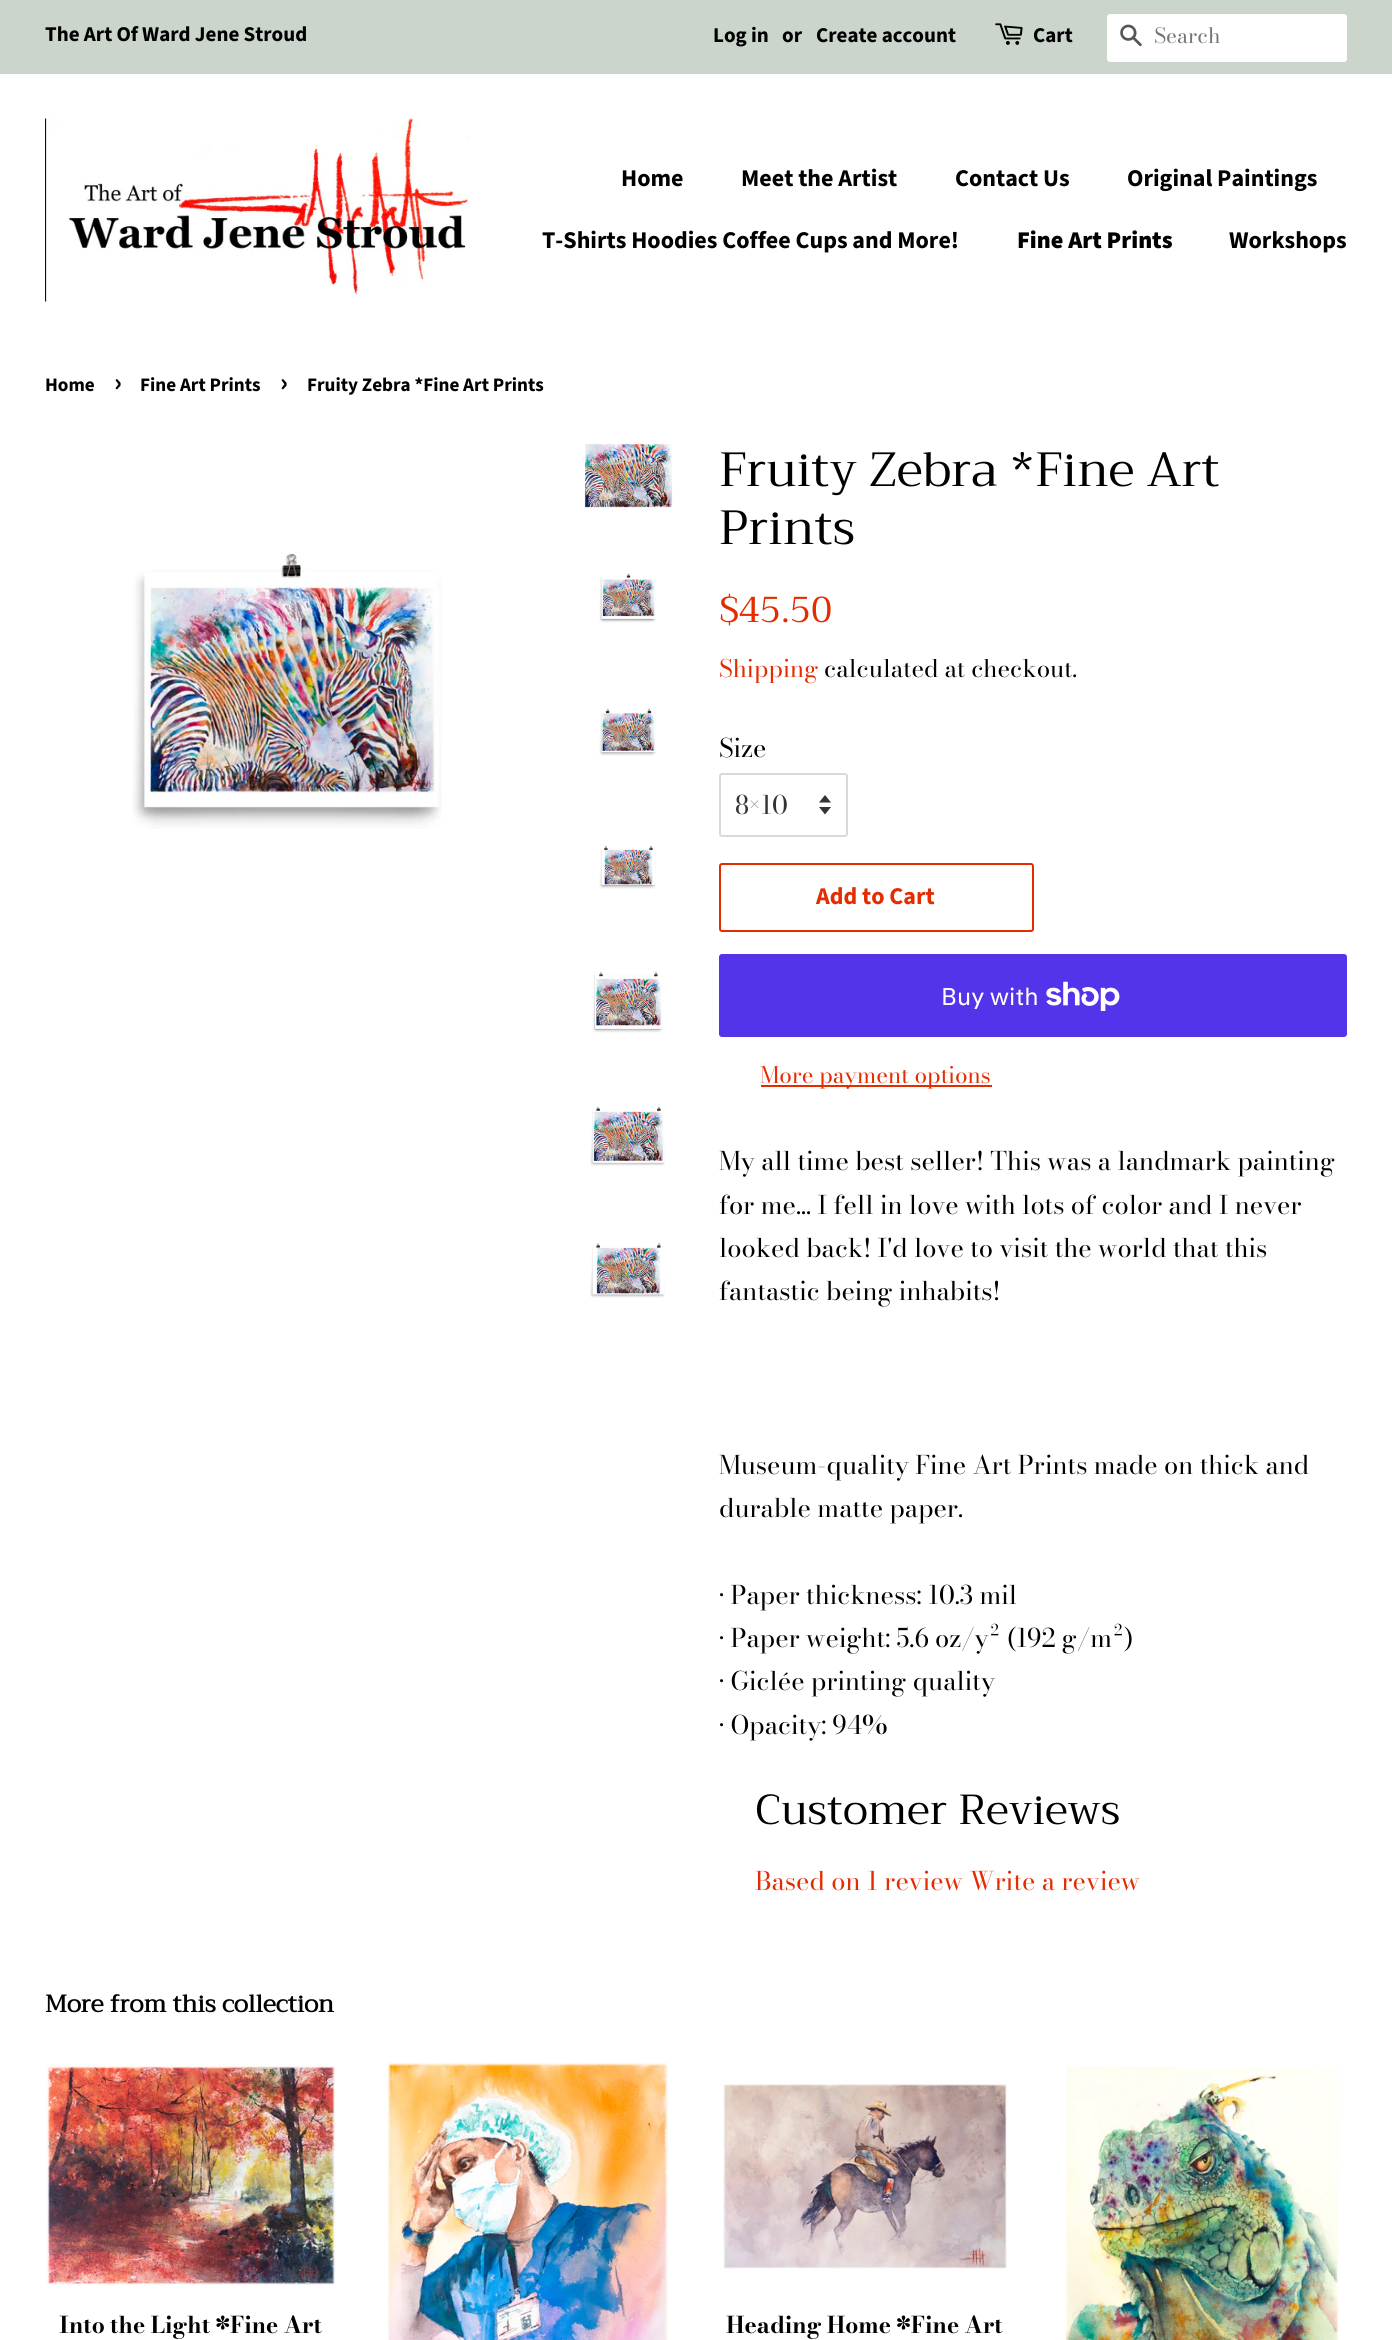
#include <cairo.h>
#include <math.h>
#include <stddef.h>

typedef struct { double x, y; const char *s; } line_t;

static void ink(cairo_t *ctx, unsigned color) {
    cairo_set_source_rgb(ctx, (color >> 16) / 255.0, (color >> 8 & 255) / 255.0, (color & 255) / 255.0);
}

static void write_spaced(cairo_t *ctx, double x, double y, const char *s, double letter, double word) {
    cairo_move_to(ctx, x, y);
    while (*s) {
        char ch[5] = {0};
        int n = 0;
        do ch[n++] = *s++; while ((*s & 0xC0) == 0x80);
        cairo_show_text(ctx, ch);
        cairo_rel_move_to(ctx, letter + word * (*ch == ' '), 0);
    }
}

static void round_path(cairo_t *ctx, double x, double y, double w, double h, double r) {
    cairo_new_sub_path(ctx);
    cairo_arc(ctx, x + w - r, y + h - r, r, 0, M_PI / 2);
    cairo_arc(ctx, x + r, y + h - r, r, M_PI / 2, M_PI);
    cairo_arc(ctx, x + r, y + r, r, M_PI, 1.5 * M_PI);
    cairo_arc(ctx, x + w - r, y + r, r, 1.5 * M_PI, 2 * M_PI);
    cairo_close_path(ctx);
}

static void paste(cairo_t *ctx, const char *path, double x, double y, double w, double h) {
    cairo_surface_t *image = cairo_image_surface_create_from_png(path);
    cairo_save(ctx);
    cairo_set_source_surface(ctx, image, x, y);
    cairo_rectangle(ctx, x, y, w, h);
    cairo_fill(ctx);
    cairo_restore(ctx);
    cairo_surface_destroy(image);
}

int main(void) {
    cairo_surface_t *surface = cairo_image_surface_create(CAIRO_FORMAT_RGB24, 1392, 2340);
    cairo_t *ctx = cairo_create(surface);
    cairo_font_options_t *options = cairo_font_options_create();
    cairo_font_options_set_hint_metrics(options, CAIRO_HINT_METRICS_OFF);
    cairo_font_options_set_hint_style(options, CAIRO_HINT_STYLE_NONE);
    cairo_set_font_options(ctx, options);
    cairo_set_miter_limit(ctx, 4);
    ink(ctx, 0xFFFFFF);
    cairo_paint(ctx);
    ink(ctx, 0xCBD5CC);
    cairo_rectangle(ctx, 0, 0, 1392, 74);
    cairo_fill(ctx);
    cairo_select_font_face(ctx, "Source Sans Pro", CAIRO_FONT_SLANT_NORMAL, CAIRO_FONT_WEIGHT_BOLD);
    cairo_set_font_size(ctx, 21);
    ink(ctx, 0x000000);
    {
        static const line_t items[] = {
            {45, 41, "The Art Of Ward Jene Stroud"},
            {713, 42, "Log in"},
            {782, 42, "or"},
            {816, 42, "Create account"},
        };
        for (size_t i = 0; i < sizeof items / sizeof *items; i++) {
            cairo_move_to(ctx, items[i].x, items[i].y);
            cairo_show_text(ctx, items[i].s);
        }
    }
    paste(ctx, "media/1.png", 995, 23, 28, 22);
    cairo_move_to(ctx, 1033, 42);
    cairo_show_text(ctx, "Cart");
    ink(ctx, 0xFFFFFF);
    round_path(ctx, 1107, 14, 240, 48, 3);
    cairo_fill(ctx);
    paste(ctx, "media/2.png", 1120, 24, 22, 23);
    cairo_select_font_face(ctx, "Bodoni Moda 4", CAIRO_FONT_SLANT_NORMAL, CAIRO_FONT_WEIGHT_NORMAL);
    ink(ctx, 0x757575);
    cairo_move_to(ctx, 1154, 43);
    cairo_show_text(ctx, "Search");
    paste(ctx, "media/3.png", 45, 118, 424, 184);
    cairo_select_font_face(ctx, "Source Sans Pro", CAIRO_FONT_SLANT_NORMAL, CAIRO_FONT_WEIGHT_BOLD);
    cairo_set_font_size(ctx, 24);
    ink(ctx, 0x000000);
    {
        static const line_t items[] = {
            {621, 186, "Home"},
            {741, 186, "Meet the Artist"},
            {955, 186, "Contact Us"},
            {1127, 186, "Original Paintings"},
            {542, 248, "T-Shirts Hoodies Coffee Cups and More!"},
        };
        for (size_t i = 0; i < sizeof items / sizeof *items; i++) {
            cairo_move_to(ctx, items[i].x, items[i].y);
            cairo_show_text(ctx, items[i].s);
        }
    }
    cairo_select_font_face(ctx, "Source Sans Pro Black", CAIRO_FONT_SLANT_NORMAL, CAIRO_FONT_WEIGHT_NORMAL);
    cairo_move_to(ctx, 1017, 248);
    cairo_show_text(ctx, "Fine Art Prints");
    cairo_select_font_face(ctx, "Source Sans Pro", CAIRO_FONT_SLANT_NORMAL, CAIRO_FONT_WEIGHT_BOLD);
    cairo_move_to(ctx, 1229, 248);
    cairo_show_text(ctx, "Workshops");
    cairo_set_font_size(ctx, 19.1);
    cairo_move_to(ctx, 45, 391);
    cairo_show_text(ctx, "Home");
    cairo_set_font_size(ctx, 27);
    cairo_move_to(ctx, 114, 391);
    cairo_show_text(ctx, "›");
    cairo_set_font_size(ctx, 19.1);
    cairo_move_to(ctx, 140, 391);
    cairo_show_text(ctx, "Fine Art Prints");
    cairo_set_font_size(ctx, 27);
    cairo_move_to(ctx, 280, 391);
    cairo_show_text(ctx, "›");
    cairo_set_font_size(ctx, 19.1);
    cairo_move_to(ctx, 307, 391);
    cairo_show_text(ctx, "Fruity Zebra *Fine Art Prints");
    paste(ctx, "media/4.png", 132, 553, 310, 276);
    paste(ctx, "media/5.png", 585, 443, 88, 65);
    paste(ctx, "media/6.png", 599, 573, 57, 50);
    paste(ctx, "media/7.png", 599, 708, 57, 48);
    paste(ctx, "media/8.png", 599, 846, 57, 43);
    paste(ctx, "media/9.png", 592, 972, 71, 61);
    paste(ctx, "media/10.png", 590, 1106, 75, 60);
    paste(ctx, "media/11.png", 590, 1243, 75, 55);
    cairo_select_font_face(ctx, "Trirong", CAIRO_FONT_SLANT_NORMAL, CAIRO_FONT_WEIGHT_NORMAL);
    cairo_set_font_size(ctx, 48);
    cairo_move_to(ctx, 719, 486);
    cairo_show_text(ctx, "Fruity Zebra *Fine Art");
    cairo_move_to(ctx, 719, 544);
    cairo_show_text(ctx, "Prints");
    cairo_set_font_size(ctx, 36);
    ink(ctx, 0xE42C00);
    cairo_move_to(ctx, 719, 622);
    cairo_show_text(ctx, "$45.50");
    cairo_select_font_face(ctx, "Bodoni Moda", CAIRO_FONT_SLANT_NORMAL, CAIRO_FONT_WEIGHT_NORMAL);
    cairo_set_font_size(ctx, 24);
    cairo_move_to(ctx, 719, 677);
    cairo_show_text(ctx, "Shipping");
    ink(ctx, 0x000000);
    cairo_move_to(ctx, 824, 677);
    cairo_show_text(ctx, "calculated at checkout.");
    cairo_select_font_face(ctx, "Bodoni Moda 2", CAIRO_FONT_SLANT_NORMAL, CAIRO_FONT_WEIGHT_NORMAL);
    cairo_set_font_size(ctx, 25.5);
    cairo_move_to(ctx, 719, 757);
    cairo_show_text(ctx, "Size");
    paste(ctx, "media/12.png", 819, 795, 12, 20);
    round_path(ctx, 720, 774, 127, 62, 2);
    ink(ctx, 0xD9D9D9);
    cairo_stroke(ctx);
    ink(ctx, 0x333333);
    cairo_move_to(ctx, 735, 814);
    cairo_show_text(ctx, "8×10");
    round_path(ctx, 720, 864, 313, 67, 2);
    ink(ctx, 0xE42C00);
    cairo_stroke(ctx);
    cairo_select_font_face(ctx, "Source Sans Pro", CAIRO_FONT_SLANT_NORMAL, CAIRO_FONT_WEIGHT_BOLD);
    cairo_set_font_size(ctx, 24);
    cairo_move_to(ctx, 816, 904);
    cairo_show_text(ctx, "Add to Cart");
    ink(ctx, 0x5433EB);
    round_path(ctx, 719, 954, 628, 83, 3);
    cairo_fill(ctx);
    cairo_select_font_face(ctx, "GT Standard", CAIRO_FONT_SLANT_NORMAL, CAIRO_FONT_WEIGHT_NORMAL);
    ink(ctx, 0xFFFFFF);
    cairo_move_to(ctx, 941, 1005);
    cairo_show_text(ctx, "Buy with");
    paste(ctx, "media/13.png", 1046, 981, 74, 30);
    ink(ctx, 0xE42C00);
    cairo_rectangle(ctx, 761, 1085, 231, 2);
    cairo_fill(ctx);
    cairo_select_font_face(ctx, "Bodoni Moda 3", CAIRO_FONT_SLANT_NORMAL, CAIRO_FONT_WEIGHT_NORMAL);
    cairo_set_font_size(ctx, 22.5);
    cairo_move_to(ctx, 760, 1083);
    cairo_show_text(ctx, "More payment options");
    cairo_select_font_face(ctx, "Bodoni Moda 2", CAIRO_FONT_SLANT_NORMAL, CAIRO_FONT_WEIGHT_NORMAL);
    cairo_set_font_size(ctx, 25.5);
    ink(ctx, 0x000000);
    {
        static const line_t items[] = {
            {719, 1170, "My all time best seller! This was a landmark painting"},
            {719, 1214, "for me... I fell in love with lots of color and I never"},
            {719, 1257, "looked back! I'd love to visit the world that this"},
            {719, 1300, "fantastic being inhabits!"},
            {719, 1474, "Museum-quality Fine Art Prints made on thick and"},
            {719, 1517, "durable matte paper."},
            {719, 1604, "• Paper thickness: 10.3 mil"},
            {719, 1647, "• Paper weight: 5.6 oz/y² (192 g/m²)"},
            {719, 1690, "• Giclée printing quality"},
            {719, 1734, "• Opacity: 94%"},
        };
        for (size_t i = 0; i < sizeof items / sizeof *items; i++) {
            cairo_move_to(ctx, items[i].x, items[i].y);
            cairo_show_text(ctx, items[i].s);
        }
    }
    cairo_select_font_face(ctx, "Trirong", CAIRO_FONT_SLANT_NORMAL, CAIRO_FONT_WEIGHT_NORMAL);
    cairo_set_font_size(ctx, 42);
    cairo_move_to(ctx, 755, 1824);
    cairo_show_text(ctx, "Customer Reviews");
    cairo_select_font_face(ctx, "Bodoni Moda 2", CAIRO_FONT_SLANT_NORMAL, CAIRO_FONT_WEIGHT_NORMAL);
    cairo_set_font_size(ctx, 25.5);
    ink(ctx, 0xE42C00);
    cairo_move_to(ctx, 755, 1890);
    cairo_show_text(ctx, "Based on 1 review Write a review");
    cairo_select_font_face(ctx, "Trirong", CAIRO_FONT_SLANT_NORMAL, CAIRO_FONT_WEIGHT_BOLD);
    cairo_set_font_size(ctx, 24);
    ink(ctx, 0x000000);
    cairo_move_to(ctx, 45, 2012);
    cairo_show_text(ctx, "More from this collection");
    paste(ctx, "media/14.png", 45, 2064, 292, 221);
    cairo_select_font_face(ctx, "Bodoni Moda", CAIRO_FONT_SLANT_NORMAL, CAIRO_FONT_WEIGHT_BOLD);
    cairo_set_font_size(ctx, 23);
    write_spaced(ctx, 59, 2333, "Into the Light *Fine Art", 0, -0.5);
    paste(ctx, "media/15.png", 387, 2062, 281, 278);
    paste(ctx, "media/16.png", 723, 2082, 284, 187);
    write_spaced(ctx, 726, 2333, "Heading Home *Fine Art", 0, -0.5);
    paste(ctx, "media/17.png", 1065, 2066, 275, 274);
    cairo_surface_write_to_png(surface, "image.png");
    cairo_font_options_destroy(options);
    cairo_destroy(ctx);
    cairo_surface_destroy(surface);
    return 0;
}
